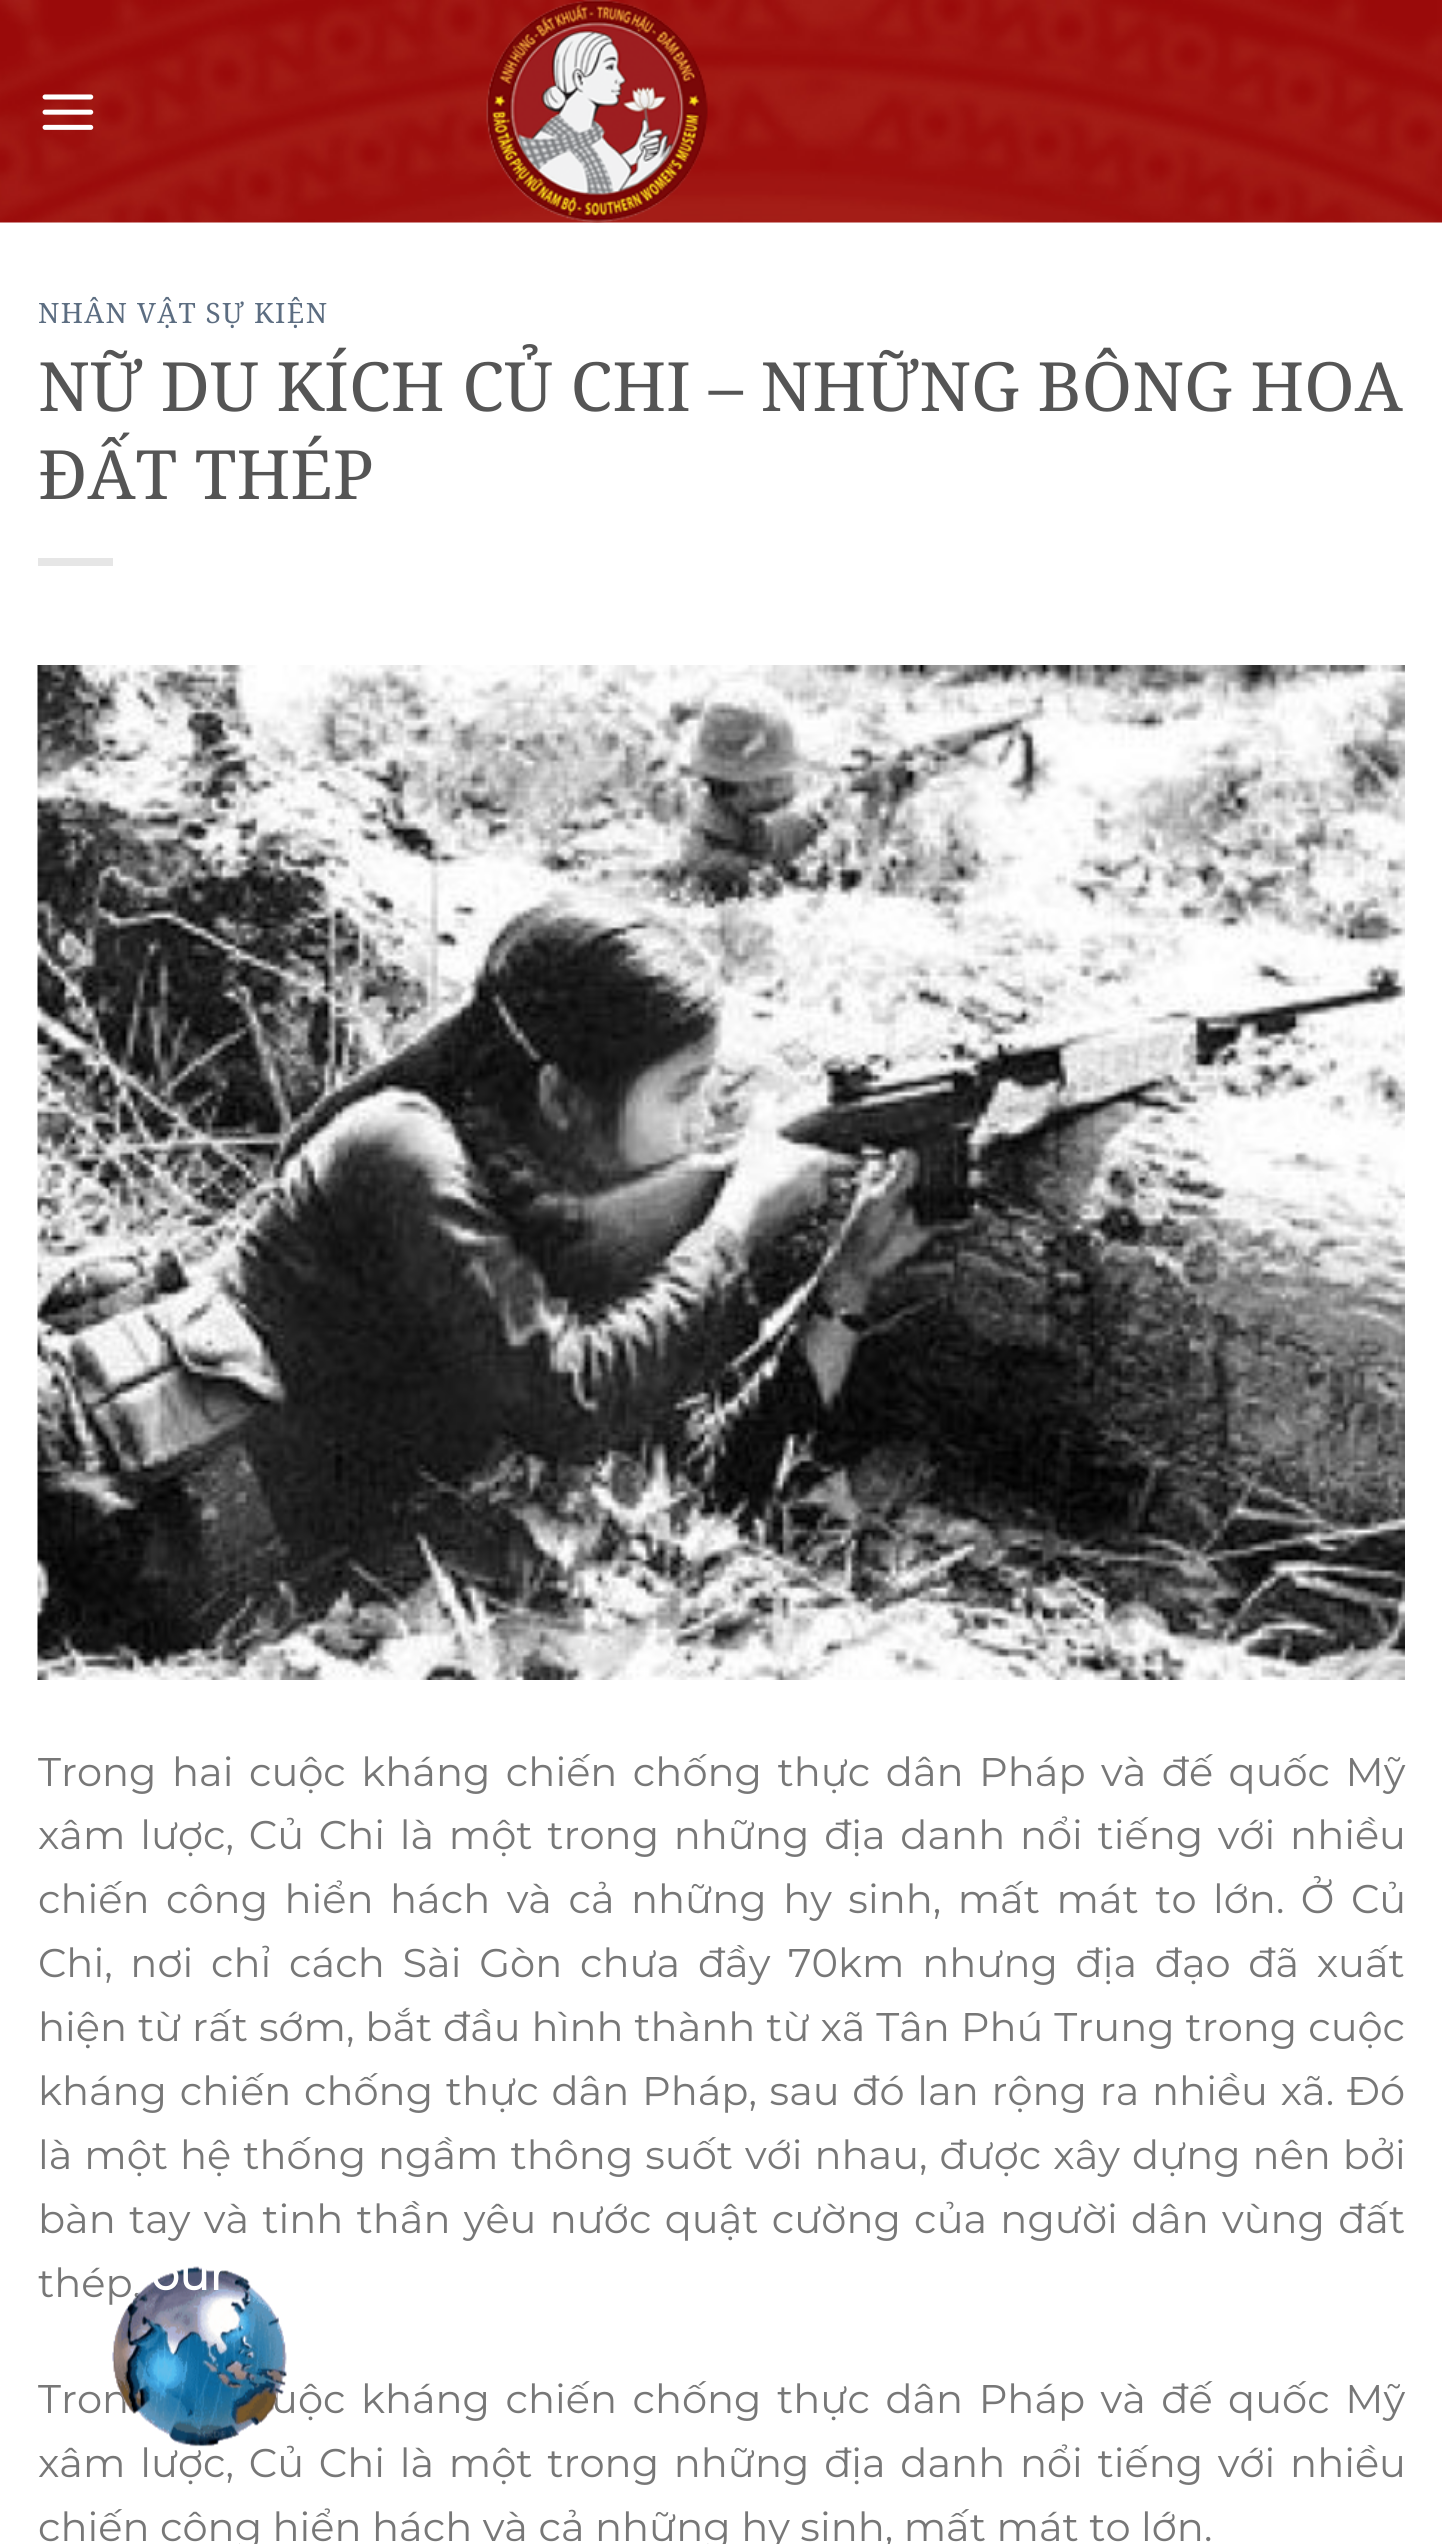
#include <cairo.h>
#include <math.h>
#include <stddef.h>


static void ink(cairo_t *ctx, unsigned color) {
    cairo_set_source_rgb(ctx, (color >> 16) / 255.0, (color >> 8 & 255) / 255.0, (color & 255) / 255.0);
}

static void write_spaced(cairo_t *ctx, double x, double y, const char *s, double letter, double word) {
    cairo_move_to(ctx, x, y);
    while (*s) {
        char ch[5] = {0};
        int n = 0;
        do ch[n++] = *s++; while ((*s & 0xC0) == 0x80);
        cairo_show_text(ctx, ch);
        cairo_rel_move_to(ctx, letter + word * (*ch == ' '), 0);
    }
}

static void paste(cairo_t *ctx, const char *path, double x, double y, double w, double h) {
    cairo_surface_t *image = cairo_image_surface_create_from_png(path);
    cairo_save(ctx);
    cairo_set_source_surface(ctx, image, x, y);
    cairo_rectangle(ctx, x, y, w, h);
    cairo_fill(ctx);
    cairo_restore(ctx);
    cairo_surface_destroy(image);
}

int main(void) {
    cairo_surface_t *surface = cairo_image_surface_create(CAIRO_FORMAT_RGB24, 1442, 2544);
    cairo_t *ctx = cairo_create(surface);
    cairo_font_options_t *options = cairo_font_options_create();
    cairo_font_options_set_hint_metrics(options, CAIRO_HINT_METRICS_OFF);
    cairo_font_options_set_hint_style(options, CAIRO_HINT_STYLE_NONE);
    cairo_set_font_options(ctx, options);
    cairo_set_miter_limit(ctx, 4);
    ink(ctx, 0xFFFFFF);
    cairo_paint(ctx);
    paste(ctx, "media/1.png", 0, 0, 1442, 223);
    paste(ctx, "media/2.png", 42, 94, 52, 36);
    paste(ctx, "media/3.png", 486, 0, 222, 223);
    cairo_select_font_face(ctx, "Noto Serif", CAIRO_FONT_SLANT_NORMAL, CAIRO_FONT_WEIGHT_NORMAL);
    cairo_set_font_size(ctx, 28);
    ink(ctx, 0x5C6D81);
    write_spaced(ctx, 38, 323, "NHÂN VẬT SỰ KIỆN", 1.4, 0);
    cairo_set_font_size(ctx, 68);
    ink(ctx, 0x555555);
    cairo_move_to(ctx, 38, 411);
    cairo_show_text(ctx, "NỮ DU KÍCH CỦ CHI – NHỮNG BÔNG HOA");
    cairo_move_to(ctx, 38, 499);
    cairo_show_text(ctx, "ĐẤT THÉP");
    ink(ctx, 0xE6E6E6);
    cairo_rectangle(ctx, 38, 558, 75, 8);
    cairo_fill(ctx);
    paste(ctx, "media/4.png", 37, 665, 1368, 1015);
    cairo_select_font_face(ctx, "Montserrat Thin", CAIRO_FONT_SLANT_NORMAL, CAIRO_FONT_WEIGHT_NORMAL);
    cairo_set_font_size(ctx, 40);
    ink(ctx, 0x777777);
    write_spaced(ctx, 38, 1786, "Trong hai cuộc kháng chiến chống thực dân Pháp và đế quốc Mỹ", 0, 5);
    write_spaced(ctx, 38, 1849, "xâm lược, Củ Chi là một trong những địa danh nổi tiếng với nhiều", 0, 4.25);
    write_spaced(ctx, 38, 1913, "chiến công hiển hách và cả những hy sinh, mất mát to lớn. Ở Củ", 0, 6);
    write_spaced(ctx, 38, 1977, "Chi, nơi chỉ cách Sài Gòn chưa đầy 70km nhưng địa đạo đã xuất", 0, 7.25);
    write_spaced(ctx, 38, 2041, "hiện từ rất sớm, bắt đầu hình thành từ xã Tân Phú Trung trong cuộc", 0, 0.4);
    write_spaced(ctx, 38, 2105, "kháng chiến chống thực dân Pháp, sau đó lan rộng ra nhiều xã. Đó", 0, 2.25);
    write_spaced(ctx, 38, 2169, "là một hệ thống ngầm thông suốt với nhau, được xây dựng nên bởi", 0, 1.5);
    write_spaced(ctx, 38, 2233, "bàn tay và tinh thần yêu nước quật cường của người dân vùng đất", 0, 2.75);
    cairo_move_to(ctx, 38, 2297);
    cairo_show_text(ctx, "thép.");
    write_spaced(ctx, 38, 2413, "Tron", 0, 5);
    write_spaced(ctx, 271, 2413, "uộc kháng chiến chống thực dân Pháp và đế quốc Mỹ", 0, 5);
    write_spaced(ctx, 38, 2477, "xâm lược, Củ Chi là một trong những địa danh nổi tiếng với nhiều", 0, 4.25);
    cairo_move_to(ctx, 38, 2541);
    cairo_show_text(ctx, "chiến công hiển hách và cả những hy sinh, mất mát to lớn.");
    paste(ctx, "media/5.png", 112, 2266, 175, 181);
    cairo_select_font_face(ctx, "Montserrat", CAIRO_FONT_SLANT_NORMAL, CAIRO_FONT_WEIGHT_BOLD);
    cairo_set_font_size(ctx, 45);
    ink(ctx, 0xFFFFFF);
    cairo_move_to(ctx, 151, 2290);
    cairo_show_text(ctx, "our");
    cairo_surface_write_to_png(surface, "image.png");
    cairo_font_options_destroy(options);
    cairo_destroy(ctx);
    cairo_surface_destroy(surface);
    return 0;
}
